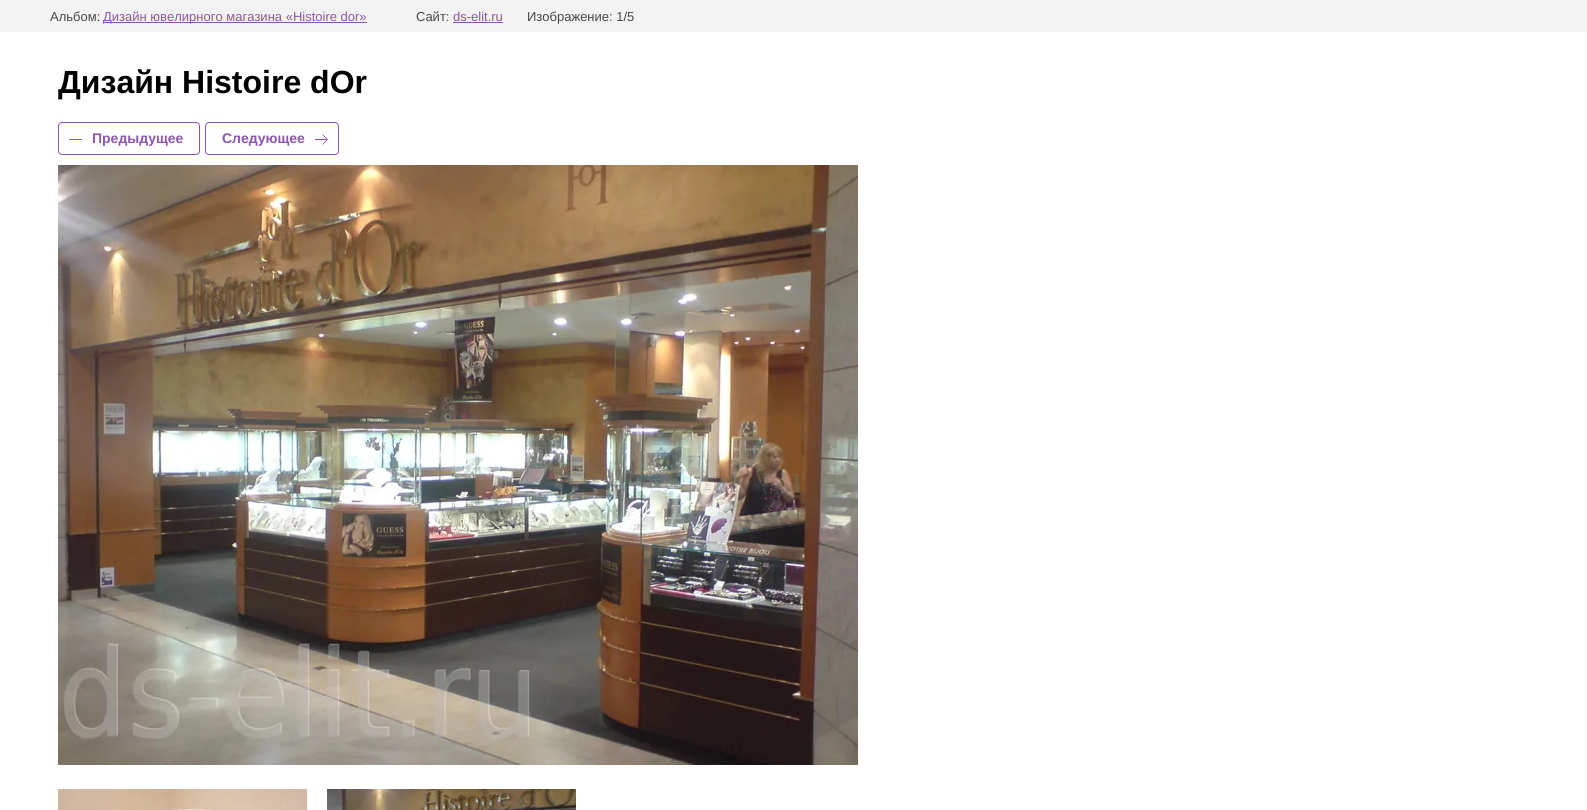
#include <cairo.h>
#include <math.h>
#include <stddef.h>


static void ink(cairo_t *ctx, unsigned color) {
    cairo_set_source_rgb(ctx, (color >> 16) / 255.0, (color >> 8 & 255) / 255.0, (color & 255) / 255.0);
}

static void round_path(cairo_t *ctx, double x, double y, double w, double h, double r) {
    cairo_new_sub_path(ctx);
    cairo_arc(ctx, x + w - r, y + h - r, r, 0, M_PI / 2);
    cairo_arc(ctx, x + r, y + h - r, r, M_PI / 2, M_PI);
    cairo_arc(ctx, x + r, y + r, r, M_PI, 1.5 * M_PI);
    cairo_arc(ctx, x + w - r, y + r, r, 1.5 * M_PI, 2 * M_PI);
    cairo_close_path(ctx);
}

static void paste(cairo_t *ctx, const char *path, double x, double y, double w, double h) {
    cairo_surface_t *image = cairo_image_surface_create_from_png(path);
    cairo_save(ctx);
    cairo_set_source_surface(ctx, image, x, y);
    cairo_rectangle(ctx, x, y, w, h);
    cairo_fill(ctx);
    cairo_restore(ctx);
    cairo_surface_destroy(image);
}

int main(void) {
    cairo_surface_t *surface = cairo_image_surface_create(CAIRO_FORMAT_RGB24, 1587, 810);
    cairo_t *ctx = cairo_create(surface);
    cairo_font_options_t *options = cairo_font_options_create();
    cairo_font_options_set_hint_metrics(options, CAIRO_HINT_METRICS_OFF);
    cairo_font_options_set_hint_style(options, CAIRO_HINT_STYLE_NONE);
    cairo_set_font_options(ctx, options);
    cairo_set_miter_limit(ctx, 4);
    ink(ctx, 0xFFFFFF);
    cairo_paint(ctx);
    ink(ctx, 0xF3F3F3);
    cairo_rectangle(ctx, 0, 0, 1587, 32);
    cairo_fill(ctx);
    cairo_select_font_face(ctx, "Liberation Sans", CAIRO_FONT_SLANT_NORMAL, CAIRO_FONT_WEIGHT_NORMAL);
    cairo_set_font_size(ctx, 13);
    ink(ctx, 0x484848);
    cairo_move_to(ctx, 50, 21);
    cairo_show_text(ctx, "Альбом:");
    ink(ctx, 0x8E54B2);
    cairo_rectangle(ctx, 103, 22, 264, 1);
    cairo_fill(ctx);
    cairo_move_to(ctx, 103, 21);
    cairo_show_text(ctx, "Дизайн ювелирного магазина «Histoire dor»");
    ink(ctx, 0x484848);
    cairo_move_to(ctx, 416, 21);
    cairo_show_text(ctx, "Сайт:");
    ink(ctx, 0x8E54B2);
    cairo_move_to(ctx, 453, 21);
    cairo_show_text(ctx, "ds-elit.ru");
    cairo_rectangle(ctx, 453, 22, 50, 1);
    cairo_fill(ctx);
    ink(ctx, 0x484848);
    cairo_move_to(ctx, 527, 21);
    cairo_show_text(ctx, "Изображение: 1/5");
    cairo_select_font_face(ctx, "Liberation Sans", CAIRO_FONT_SLANT_NORMAL, CAIRO_FONT_WEIGHT_BOLD);
    cairo_set_font_size(ctx, 32);
    ink(ctx, 0x000000);
    cairo_move_to(ctx, 58, 93);
    cairo_show_text(ctx, "Дизайн Histoire dOr");
    round_path(ctx, 58.5, 122.5, 141, 32, 3.5);
    ink(ctx, 0x8E54B2);
    cairo_set_line_width(ctx, 1);
    cairo_stroke(ctx);
    paste(ctx, "media/1.png", 69, 139, 13, 1);
    cairo_set_font_size(ctx, 14);
    cairo_move_to(ctx, 92, 143);
    cairo_show_text(ctx, "Предыдущее");
    round_path(ctx, 205.5, 122.5, 133, 32, 3.5);
    cairo_stroke(ctx);
    cairo_move_to(ctx, 222, 143);
    cairo_show_text(ctx, "Следующее");
    paste(ctx, "media/2.png", 315, 134, 13, 11);
    paste(ctx, "media/3.png", 58, 165, 800, 600);
    paste(ctx, "media/4.png", 58, 789, 249, 21);
    paste(ctx, "media/5.png", 327, 789, 249, 21);
    cairo_surface_write_to_png(surface, "image.png");
    cairo_font_options_destroy(options);
    cairo_destroy(ctx);
    cairo_surface_destroy(surface);
    return 0;
}
